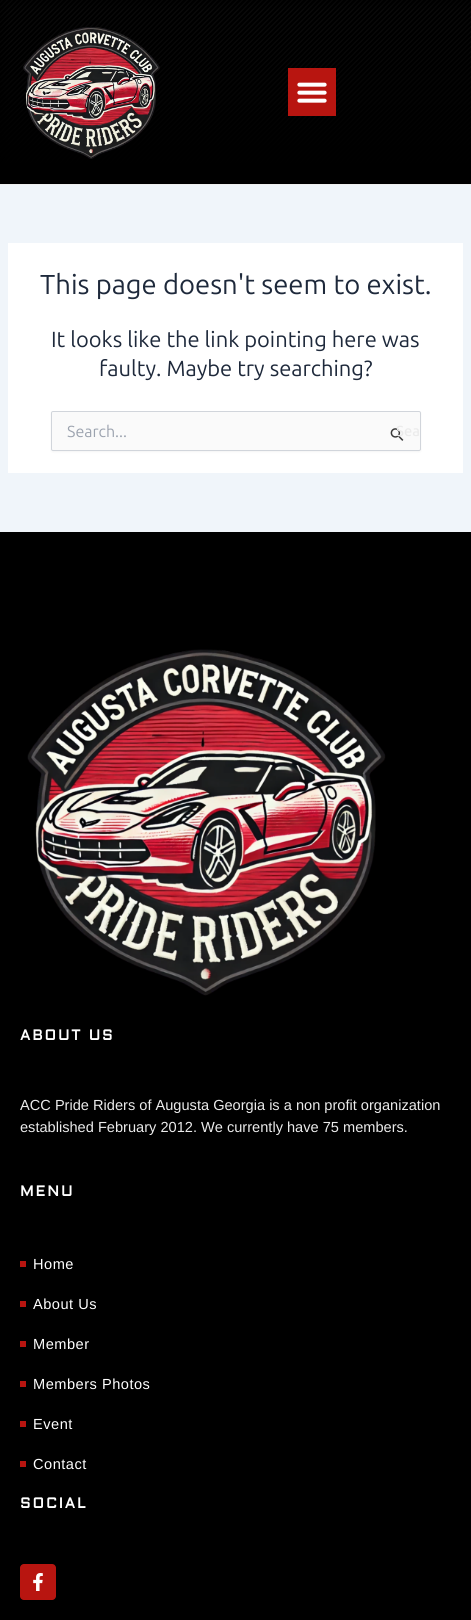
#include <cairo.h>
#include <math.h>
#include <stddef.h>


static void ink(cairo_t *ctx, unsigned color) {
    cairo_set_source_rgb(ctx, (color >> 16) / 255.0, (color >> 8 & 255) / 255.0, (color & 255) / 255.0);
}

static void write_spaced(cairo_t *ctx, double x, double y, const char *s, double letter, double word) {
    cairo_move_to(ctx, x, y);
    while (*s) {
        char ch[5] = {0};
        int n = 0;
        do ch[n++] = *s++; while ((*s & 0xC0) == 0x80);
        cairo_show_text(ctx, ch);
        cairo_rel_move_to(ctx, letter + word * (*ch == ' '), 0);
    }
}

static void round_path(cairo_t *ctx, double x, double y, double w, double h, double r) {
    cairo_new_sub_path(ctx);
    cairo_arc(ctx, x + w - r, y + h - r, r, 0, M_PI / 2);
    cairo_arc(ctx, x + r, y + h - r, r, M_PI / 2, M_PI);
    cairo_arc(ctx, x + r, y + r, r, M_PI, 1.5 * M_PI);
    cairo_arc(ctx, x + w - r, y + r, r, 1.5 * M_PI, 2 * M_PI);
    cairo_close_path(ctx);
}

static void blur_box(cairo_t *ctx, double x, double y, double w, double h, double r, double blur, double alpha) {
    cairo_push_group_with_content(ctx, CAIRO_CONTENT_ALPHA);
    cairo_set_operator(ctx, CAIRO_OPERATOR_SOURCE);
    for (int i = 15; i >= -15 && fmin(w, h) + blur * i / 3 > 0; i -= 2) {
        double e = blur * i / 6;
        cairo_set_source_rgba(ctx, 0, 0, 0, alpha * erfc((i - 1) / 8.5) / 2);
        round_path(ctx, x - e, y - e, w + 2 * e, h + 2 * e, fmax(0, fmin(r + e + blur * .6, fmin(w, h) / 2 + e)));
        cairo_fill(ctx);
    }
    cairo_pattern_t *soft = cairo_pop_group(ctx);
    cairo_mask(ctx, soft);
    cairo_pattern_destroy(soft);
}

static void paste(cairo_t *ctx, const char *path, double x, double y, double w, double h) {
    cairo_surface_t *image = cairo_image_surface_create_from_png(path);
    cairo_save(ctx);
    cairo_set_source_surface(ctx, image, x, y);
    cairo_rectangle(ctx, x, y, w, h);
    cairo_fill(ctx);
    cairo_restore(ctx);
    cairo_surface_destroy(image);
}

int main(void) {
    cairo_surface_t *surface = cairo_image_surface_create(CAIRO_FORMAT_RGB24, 471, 1620);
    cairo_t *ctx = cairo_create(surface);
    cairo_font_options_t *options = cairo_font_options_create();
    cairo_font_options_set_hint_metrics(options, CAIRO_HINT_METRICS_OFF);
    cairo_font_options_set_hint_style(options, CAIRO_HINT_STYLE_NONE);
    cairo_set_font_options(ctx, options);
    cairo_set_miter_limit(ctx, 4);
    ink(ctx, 0xF0F5FA);
    cairo_paint(ctx);
    paste(ctx, "media/1.png", 0, 0, 471, 184);
    ink(ctx, 0xEFEFEF);
    cairo_rectangle(ctx, 0, 184, 471, 1);
    cairo_fill(ctx);
    paste(ctx, "media/2.png", 23, 27, 137, 132);
    ink(ctx, 0xB81510);
    cairo_rectangle(ctx, 288, 68, 48, 48);
    cairo_fill(ctx);
    paste(ctx, "media/3.png", 297, 82, 30, 21);
    ink(ctx, 0xFFFFFF);
    cairo_rectangle(ctx, 8, 243, 455, 230);
    cairo_fill(ctx);
    cairo_select_font_face(ctx, "Ubuntu", CAIRO_FONT_SLANT_NORMAL, CAIRO_FONT_WEIGHT_NORMAL);
    cairo_set_font_size(ctx, 27.4);
    ink(ctx, 0x1E293B);
    cairo_move_to(ctx, 40, 294);
    cairo_show_text(ctx, "This page doesn't seem to exist.");
    cairo_set_font_size(ctx, 21.9);
    cairo_move_to(ctx, 51, 347);
    cairo_show_text(ctx, "It looks like the link pointing here was");
    cairo_move_to(ctx, 99, 376);
    cairo_show_text(ctx, "faulty. Maybe try searching?");
    ink(ctx, 0x000000);
    blur_box(ctx, 51, 412, 370, 40, 2, 1, 0.05);
    ink(ctx, 0xFAFAFA);
    round_path(ctx, 51.5, 411.5, 369, 39, 1.5);
    cairo_fill_preserve(ctx);
    ink(ctx, 0xD1D5DB);
    cairo_set_line_width(ctx, 1);
    cairo_stroke(ctx);
    cairo_set_font_size(ctx, 16);
    ink(ctx, 0x9CA3AF);
    cairo_move_to(ctx, 67, 437);
    cairo_show_text(ctx, "Search...");
    paste(ctx, "media/4.png", 390, 428, 14, 13);
    cairo_select_font_face(ctx, "Ubuntu Medium", CAIRO_FONT_SLANT_NORMAL, CAIRO_FONT_WEIGHT_NORMAL);
    cairo_set_font_size(ctx, 14.6);
    ink(ctx, 0xEBEBEB);
    cairo_move_to(ctx, 396, 436);
    cairo_show_text(ctx, "Sea");
    ink(ctx, 0x000000);
    cairo_rectangle(ctx, 0, 532, 471, 1088);
    cairo_fill(ctx);
    paste(ctx, "media/5.png", 27, 649, 359, 347);
    cairo_select_font_face(ctx, "Aldrich", CAIRO_FONT_SLANT_NORMAL, CAIRO_FONT_WEIGHT_BOLD);
    ink(ctx, 0xFFFFFF);
    write_spaced(ctx, 20, 1040, "ABOUT US", 2, 0);
    cairo_select_font_face(ctx, "Liberation Sans", CAIRO_FONT_SLANT_NORMAL, CAIRO_FONT_WEIGHT_NORMAL);
    ink(ctx, 0xEBEBEB);
    cairo_move_to(ctx, 20, 1110);
    cairo_show_text(ctx, "ACC Pride Riders of Augusta Georgia is a non profit organization");
    cairo_move_to(ctx, 20, 1132);
    cairo_show_text(ctx, "established February 2012. We currently have 75 members.");
    cairo_select_font_face(ctx, "Aldrich", CAIRO_FONT_SLANT_NORMAL, CAIRO_FONT_WEIGHT_BOLD);
    ink(ctx, 0xFFFFFF);
    write_spaced(ctx, 20, 1196, "MENU", 2, 0);
    ink(ctx, 0xB81510);
    cairo_rectangle(ctx, 20, 1261, 6, 6);
    cairo_fill(ctx);
    cairo_select_font_face(ctx, "Liberation Sans", CAIRO_FONT_SLANT_NORMAL, CAIRO_FONT_WEIGHT_NORMAL);
    ink(ctx, 0xFFFFFF);
    write_spaced(ctx, 33, 1269, "Home", 0.5, 0);
    ink(ctx, 0xB81510);
    cairo_rectangle(ctx, 20, 1301, 6, 6);
    cairo_fill(ctx);
    ink(ctx, 0xFFFFFF);
    write_spaced(ctx, 33, 1309, "About Us", 0.5, 0);
    ink(ctx, 0xB81510);
    cairo_rectangle(ctx, 20, 1341, 6, 6);
    cairo_fill(ctx);
    ink(ctx, 0xFFFFFF);
    write_spaced(ctx, 33, 1349, "Member", 0.5, 0);
    ink(ctx, 0xB81510);
    cairo_rectangle(ctx, 20, 1381, 6, 6);
    cairo_fill(ctx);
    ink(ctx, 0xFFFFFF);
    write_spaced(ctx, 33, 1389, "Members Photos", 0.5, 0);
    ink(ctx, 0xB81510);
    cairo_rectangle(ctx, 20, 1421, 6, 6);
    cairo_fill(ctx);
    ink(ctx, 0xFFFFFF);
    write_spaced(ctx, 33, 1429, "Event", 0.5, 0);
    ink(ctx, 0xB81510);
    cairo_rectangle(ctx, 20, 1461, 6, 6);
    cairo_fill(ctx);
    ink(ctx, 0xFFFFFF);
    write_spaced(ctx, 33, 1469, "Contact", 0.5, 0);
    cairo_select_font_face(ctx, "Aldrich", CAIRO_FONT_SLANT_NORMAL, CAIRO_FONT_WEIGHT_BOLD);
    write_spaced(ctx, 20, 1508, "SOCIAL", 2, 0);
    ink(ctx, 0xB81510);
    round_path(ctx, 20, 1564, 36, 36, 4);
    cairo_fill(ctx);
    paste(ctx, "media/6.png", 33, 1573, 10, 18);
    cairo_surface_write_to_png(surface, "image.png");
    cairo_font_options_destroy(options);
    cairo_destroy(ctx);
    cairo_surface_destroy(surface);
    return 0;
}
